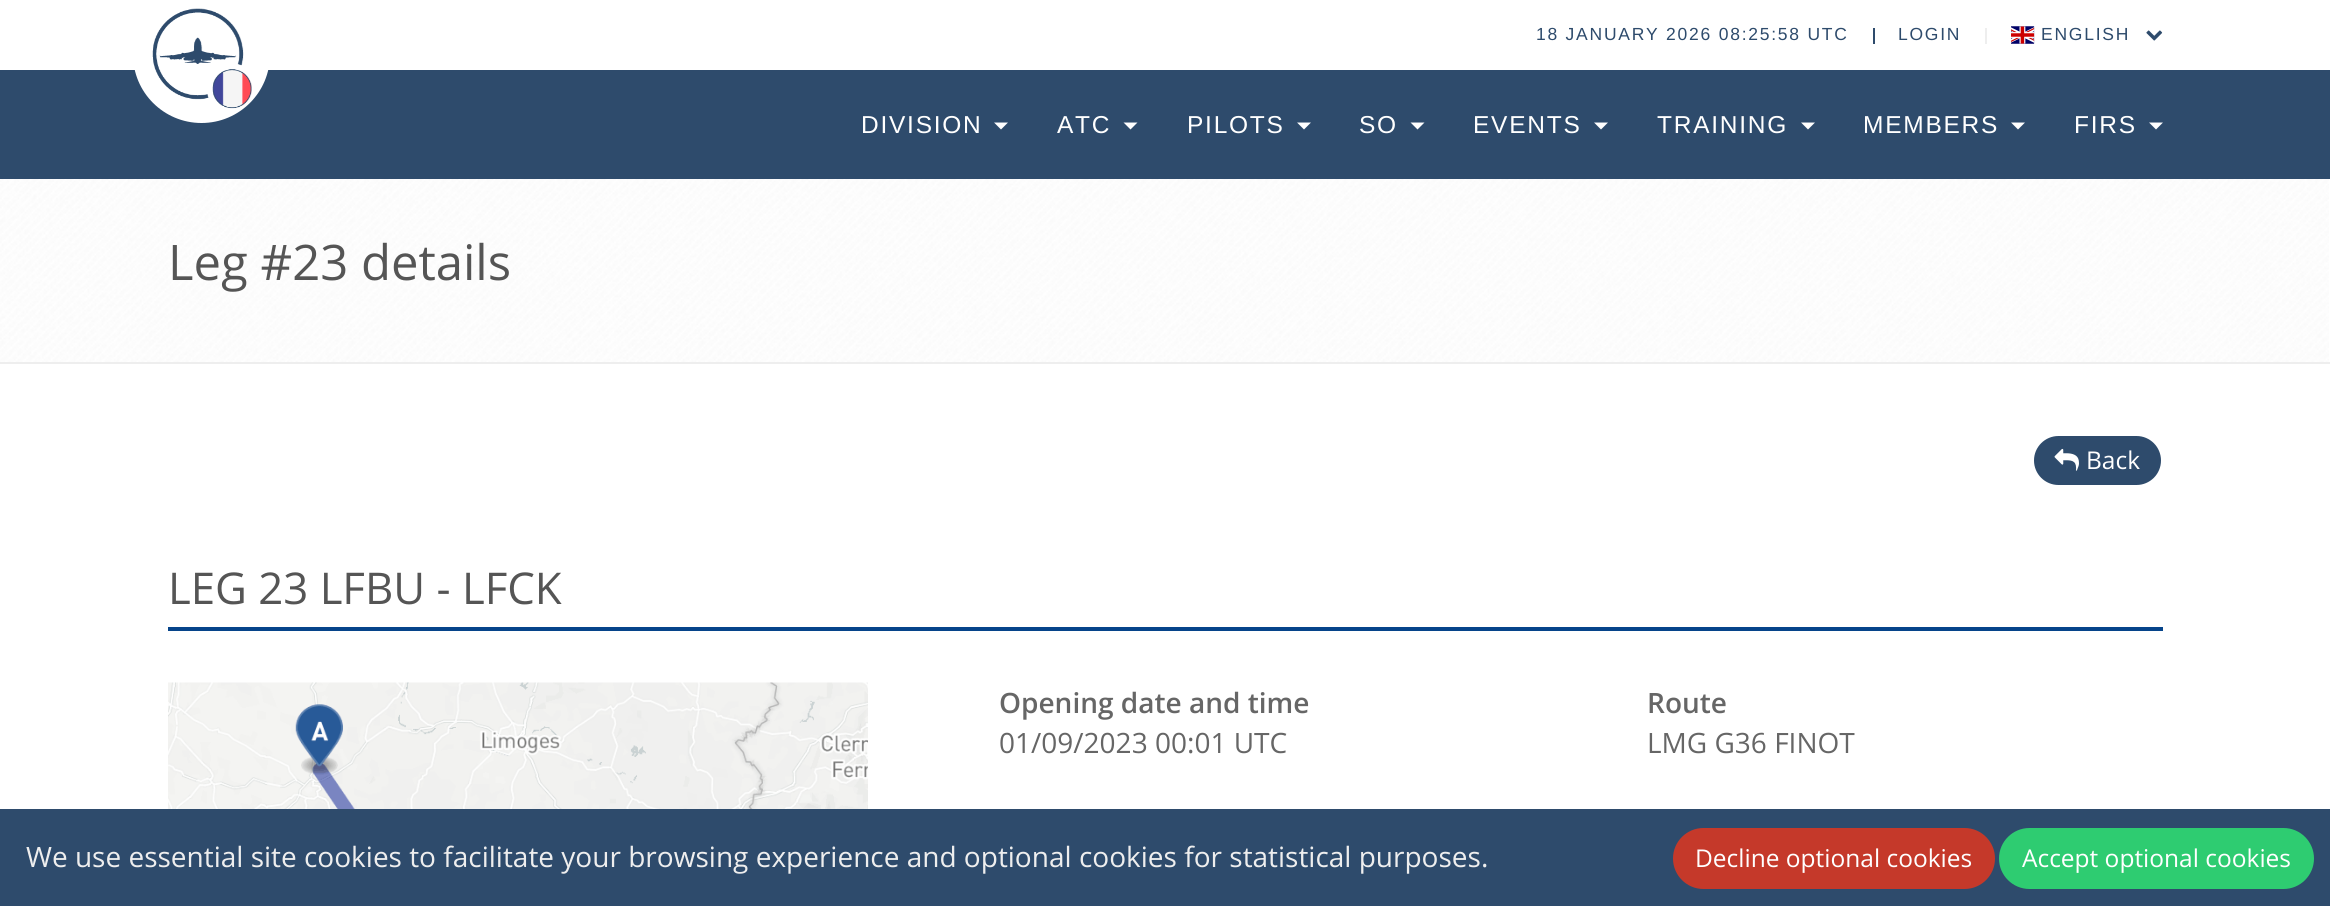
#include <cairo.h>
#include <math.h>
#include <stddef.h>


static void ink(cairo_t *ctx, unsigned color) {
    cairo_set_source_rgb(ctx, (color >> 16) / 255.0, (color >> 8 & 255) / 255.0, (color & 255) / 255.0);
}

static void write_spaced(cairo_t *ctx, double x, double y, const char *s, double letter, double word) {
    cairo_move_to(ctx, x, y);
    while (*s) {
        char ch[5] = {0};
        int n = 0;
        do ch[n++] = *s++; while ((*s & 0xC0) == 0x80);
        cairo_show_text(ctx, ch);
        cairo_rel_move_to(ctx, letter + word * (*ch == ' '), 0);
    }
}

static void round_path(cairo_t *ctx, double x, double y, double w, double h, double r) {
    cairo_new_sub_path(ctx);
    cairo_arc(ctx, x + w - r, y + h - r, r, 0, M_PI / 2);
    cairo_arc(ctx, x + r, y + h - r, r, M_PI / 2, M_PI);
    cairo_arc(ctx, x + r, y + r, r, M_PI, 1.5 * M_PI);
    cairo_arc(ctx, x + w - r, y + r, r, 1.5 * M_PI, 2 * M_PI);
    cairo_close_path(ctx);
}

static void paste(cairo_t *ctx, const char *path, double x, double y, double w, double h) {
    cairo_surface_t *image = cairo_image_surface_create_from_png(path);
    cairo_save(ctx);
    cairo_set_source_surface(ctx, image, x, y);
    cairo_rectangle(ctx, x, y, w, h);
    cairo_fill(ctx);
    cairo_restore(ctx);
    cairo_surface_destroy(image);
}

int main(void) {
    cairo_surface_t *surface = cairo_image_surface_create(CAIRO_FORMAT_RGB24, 2330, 906);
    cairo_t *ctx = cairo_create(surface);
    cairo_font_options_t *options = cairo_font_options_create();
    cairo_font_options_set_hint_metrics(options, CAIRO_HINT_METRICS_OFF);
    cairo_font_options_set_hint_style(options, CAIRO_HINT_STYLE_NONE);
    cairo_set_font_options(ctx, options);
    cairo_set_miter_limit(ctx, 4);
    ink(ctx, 0xFFFFFF);
    cairo_paint(ctx);
    cairo_select_font_face(ctx, "Liberation Sans", CAIRO_FONT_SLANT_NORMAL, CAIRO_FONT_WEIGHT_NORMAL);
    cairo_set_font_size(ctx, 17.5);
    ink(ctx, 0x2E4B6C);
    write_spaced(ctx, 1536, 40, "18 JANUARY 2026 08:25:58 UTC", 1.75, 0);
    cairo_rectangle(ctx, 1873, 28, 2, 16);
    cairo_fill(ctx);
    write_spaced(ctx, 1898, 40, "LOGIN", 1.75, 0);
    ink(ctx, 0xEEEEEE);
    cairo_rectangle(ctx, 1985, 28, 2, 16);
    cairo_fill(ctx);
    paste(ctx, "media/1.png", 2011, 26, 24, 18);
    ink(ctx, 0x2E4B6C);
    write_spaced(ctx, 2041, 40, "ENGLISH", 1.75, 0);
    paste(ctx, "media/2.png", 2146, 30, 17, 11);
    cairo_rectangle(ctx, 0, 70, 2330, 109);
    cairo_fill(ctx);
    ink(ctx, 0xFFFFFF);
    round_path(ctx, 133, -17, 137, 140, 68.5);
    cairo_fill(ctx);
    paste(ctx, "media/3.png", 152, 8, 100, 101);
    cairo_set_font_size(ctx, 24.5);
    write_spaced(ctx, 861, 133, "DIVISION", 1.75, 0);
    cairo_new_path(ctx);
    cairo_move_to(ctx, 994, 122.5);
    cairo_line_to(ctx, 1008, 122.5);
    cairo_line_to(ctx, 1001, 129.5);
    cairo_close_path(ctx);
    cairo_fill(ctx);
    write_spaced(ctx, 1057, 133, "ATC", 1.75, 0);
    cairo_new_path(ctx);
    cairo_move_to(ctx, 1123.5, 122.5);
    cairo_line_to(ctx, 1137.5, 122.5);
    cairo_line_to(ctx, 1130.5, 129.5);
    cairo_close_path(ctx);
    cairo_fill(ctx);
    write_spaced(ctx, 1187, 133, "PILOTS", 1.75, 0);
    cairo_new_path(ctx);
    cairo_move_to(ctx, 1297, 122.5);
    cairo_line_to(ctx, 1311, 122.5);
    cairo_line_to(ctx, 1304, 129.5);
    cairo_close_path(ctx);
    cairo_fill(ctx);
    write_spaced(ctx, 1359, 133, "SO", 1.75, 0);
    cairo_new_path(ctx);
    cairo_move_to(ctx, 1410.5, 122.5);
    cairo_line_to(ctx, 1424.5, 122.5);
    cairo_line_to(ctx, 1417.5, 129.5);
    cairo_close_path(ctx);
    cairo_fill(ctx);
    write_spaced(ctx, 1473, 133, "EVENTS", 1.75, 0);
    cairo_new_path(ctx);
    cairo_move_to(ctx, 1594, 122.5);
    cairo_line_to(ctx, 1608, 122.5);
    cairo_line_to(ctx, 1601, 129.5);
    cairo_close_path(ctx);
    cairo_fill(ctx);
    write_spaced(ctx, 1657, 133, "TRAINING", 1.75, 0);
    cairo_new_path(ctx);
    cairo_move_to(ctx, 1801, 122.5);
    cairo_line_to(ctx, 1815, 122.5);
    cairo_line_to(ctx, 1808, 129.5);
    cairo_close_path(ctx);
    cairo_fill(ctx);
    write_spaced(ctx, 1863, 133, "MEMBERS", 1.75, 0);
    cairo_new_path(ctx);
    cairo_move_to(ctx, 2011, 122.5);
    cairo_line_to(ctx, 2025, 122.5);
    cairo_line_to(ctx, 2018, 129.5);
    cairo_close_path(ctx);
    cairo_fill(ctx);
    write_spaced(ctx, 2074, 133, "FIRS", 1.75, 0);
    cairo_new_path(ctx);
    cairo_move_to(ctx, 2149, 122.5);
    cairo_line_to(ctx, 2163, 122.5);
    cairo_line_to(ctx, 2156, 129.5);
    cairo_close_path(ctx);
    cairo_fill(ctx);
    paste(ctx, "media/4.png", 0, 179, 2329, 183);
    ink(ctx, 0xEEEEEE);
    cairo_rectangle(ctx, 0, 362, 2330, 2);
    cairo_fill(ctx);
    cairo_select_font_face(ctx, "Open Sans", CAIRO_FONT_SLANT_NORMAL, CAIRO_FONT_WEIGHT_NORMAL);
    cairo_set_font_size(ctx, 49);
    ink(ctx, 0x555555);
    cairo_move_to(ctx, 168, 280);
    cairo_show_text(ctx, "Leg #23 details");
    ink(ctx, 0x2E4B6C);
    round_path(ctx, 2034, 436, 127, 49, 24.5);
    cairo_fill(ctx);
    paste(ctx, "media/5.png", 2054, 448, 25, 23);
    cairo_set_font_size(ctx, 24.5);
    ink(ctx, 0xFFFFFF);
    cairo_move_to(ctx, 2086, 469);
    cairo_show_text(ctx, "Back");
    ink(ctx, 0x06448A);
    cairo_rectangle(ctx, 168, 627, 1995, 4);
    cairo_fill(ctx);
    cairo_set_font_size(ctx, 43.75);
    ink(ctx, 0x555555);
    cairo_move_to(ctx, 168, 604);
    cairo_show_text(ctx, "LEG 23 LFBU - LFCK");
    paste(ctx, "media/6.png", 168, 682, 700, 127);
    cairo_select_font_face(ctx, "Open Sans SemiBold", CAIRO_FONT_SLANT_NORMAL, CAIRO_FONT_WEIGHT_NORMAL);
    cairo_set_font_size(ctx, 28);
    ink(ctx, 0x666666);
    cairo_move_to(ctx, 999, 713);
    cairo_show_text(ctx, "Opening date and time");
    cairo_select_font_face(ctx, "Open Sans", CAIRO_FONT_SLANT_NORMAL, CAIRO_FONT_WEIGHT_NORMAL);
    cairo_move_to(ctx, 999, 753);
    cairo_show_text(ctx, "01/09/2023 00:01 UTC");
    cairo_select_font_face(ctx, "Open Sans SemiBold", CAIRO_FONT_SLANT_NORMAL, CAIRO_FONT_WEIGHT_NORMAL);
    cairo_move_to(ctx, 1647, 713);
    cairo_show_text(ctx, "Route");
    cairo_select_font_face(ctx, "Open Sans", CAIRO_FONT_SLANT_NORMAL, CAIRO_FONT_WEIGHT_NORMAL);
    cairo_move_to(ctx, 1647, 753);
    cairo_show_text(ctx, "LMG G36 FINOT");
    ink(ctx, 0x2E4B6C);
    cairo_rectangle(ctx, 0, 809, 2330, 97);
    cairo_fill(ctx);
    ink(ctx, 0xEEEEEE);
    cairo_move_to(ctx, 26, 867);
    cairo_show_text(ctx, "We use essential site cookies to facilitate your browsing experience and optional cookies for statistical purposes.");
    ink(ctx, 0xC5392A);
    round_path(ctx, 1673, 828, 322, 61, 30.5);
    cairo_fill(ctx);
    cairo_set_font_size(ctx, 24.5);
    ink(ctx, 0xFFFFFF);
    cairo_move_to(ctx, 1695, 867);
    cairo_show_text(ctx, "Decline optional cookies");
    ink(ctx, 0x2ECC71);
    round_path(ctx, 1999, 828, 315, 61, 30.5);
    cairo_fill(ctx);
    ink(ctx, 0xFFFFFF);
    cairo_move_to(ctx, 2022, 867);
    cairo_show_text(ctx, "Accept optional cookies");
    cairo_surface_write_to_png(surface, "image.png");
    cairo_font_options_destroy(options);
    cairo_destroy(ctx);
    cairo_surface_destroy(surface);
    return 0;
}
